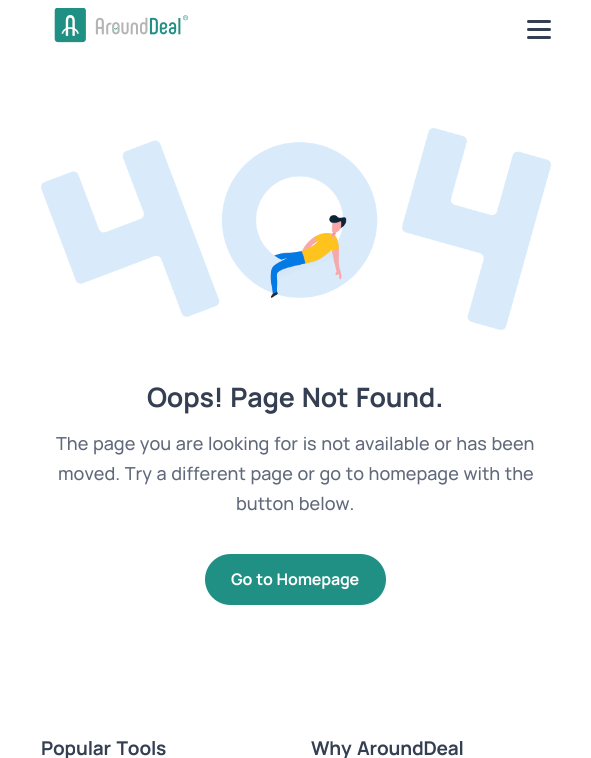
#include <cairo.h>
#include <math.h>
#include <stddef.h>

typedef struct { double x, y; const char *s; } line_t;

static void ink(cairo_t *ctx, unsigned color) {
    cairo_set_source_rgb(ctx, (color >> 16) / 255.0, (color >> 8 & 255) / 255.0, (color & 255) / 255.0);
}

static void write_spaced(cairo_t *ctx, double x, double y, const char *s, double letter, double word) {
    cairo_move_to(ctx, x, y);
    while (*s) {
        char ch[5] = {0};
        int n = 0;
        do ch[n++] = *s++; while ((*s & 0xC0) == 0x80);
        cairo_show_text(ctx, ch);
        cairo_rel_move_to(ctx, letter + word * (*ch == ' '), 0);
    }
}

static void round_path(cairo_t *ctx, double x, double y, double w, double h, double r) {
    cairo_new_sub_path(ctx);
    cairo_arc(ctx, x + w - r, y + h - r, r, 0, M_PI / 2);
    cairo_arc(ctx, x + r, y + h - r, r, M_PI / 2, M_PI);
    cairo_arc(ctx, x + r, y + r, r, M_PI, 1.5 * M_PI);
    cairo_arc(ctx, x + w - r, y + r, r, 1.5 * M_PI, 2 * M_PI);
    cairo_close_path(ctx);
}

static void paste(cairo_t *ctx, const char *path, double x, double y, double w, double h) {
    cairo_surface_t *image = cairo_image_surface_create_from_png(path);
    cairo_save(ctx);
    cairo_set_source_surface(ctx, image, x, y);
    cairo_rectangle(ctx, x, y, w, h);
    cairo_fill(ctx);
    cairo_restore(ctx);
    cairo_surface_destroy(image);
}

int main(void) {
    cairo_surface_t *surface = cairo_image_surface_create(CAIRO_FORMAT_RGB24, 591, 758);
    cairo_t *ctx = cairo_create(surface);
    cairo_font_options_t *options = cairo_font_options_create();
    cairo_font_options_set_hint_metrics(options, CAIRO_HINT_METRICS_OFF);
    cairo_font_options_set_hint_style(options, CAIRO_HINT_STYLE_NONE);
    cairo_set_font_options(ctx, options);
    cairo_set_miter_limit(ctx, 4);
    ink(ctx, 0xFFFFFF);
    cairo_paint(ctx);
    paste(ctx, "media/1.png", 54, 8, 134, 35);
    ink(ctx, 0x343F52);
    round_path(ctx, 527, 20, 24, 3, 1.5);
    cairo_fill(ctx);
    round_path(ctx, 527, 28, 24, 3, 1.5);
    cairo_fill(ctx);
    round_path(ctx, 527, 36, 24, 3, 1.5);
    cairo_fill(ctx);
    paste(ctx, "media/2.png", 41, 128, 510, 202);
    cairo_select_font_face(ctx, "Manrope", CAIRO_FONT_SLANT_NORMAL, CAIRO_FONT_WEIGHT_BOLD);
    cairo_set_font_size(ctx, 26.75);
    write_spaced(ctx, 147, 407, "Oops! Page Not Found.", -0.2, 2);
    cairo_select_font_face(ctx, "Manrope Medium", CAIRO_FONT_SLANT_NORMAL, CAIRO_FONT_WEIGHT_NORMAL);
    cairo_set_font_size(ctx, 18);
    ink(ctx, 0x60697B);
    {
        static const line_t items[] = {
            {56, 450, "The page you are looking for is not available or has been"},
            {58, 480, "moved. Try a different page or go to homepage with the"},
            {236, 510, "button below."},
        };
        for (size_t i = 0; i < sizeof items / sizeof *items; i++) {
            write_spaced(ctx, items[i].x, items[i].y, items[i].s, 0, 1);
        }
    }
    ink(ctx, 0x219084);
    round_path(ctx, 206, 555, 179, 49, 24.5);
    cairo_fill_preserve(ctx);
    cairo_stroke(ctx);
    cairo_select_font_face(ctx, "Manrope", CAIRO_FONT_SLANT_NORMAL, CAIRO_FONT_WEIGHT_BOLD);
    cairo_set_font_size(ctx, 16);
    ink(ctx, 0xFFFFFF);
    write_spaced(ctx, 231, 585, "Go to Homepage", -0.2, 1);
    cairo_set_font_size(ctx, 19);
    ink(ctx, 0x343F52);
    write_spaced(ctx, 41, 755, "Popular Tools", -0.2, 2);
    write_spaced(ctx, 311, 755, "Why AroundDeal", -0.2, 2);
    cairo_surface_write_to_png(surface, "image.png");
    cairo_font_options_destroy(options);
    cairo_destroy(ctx);
    cairo_surface_destroy(surface);
    return 0;
}
